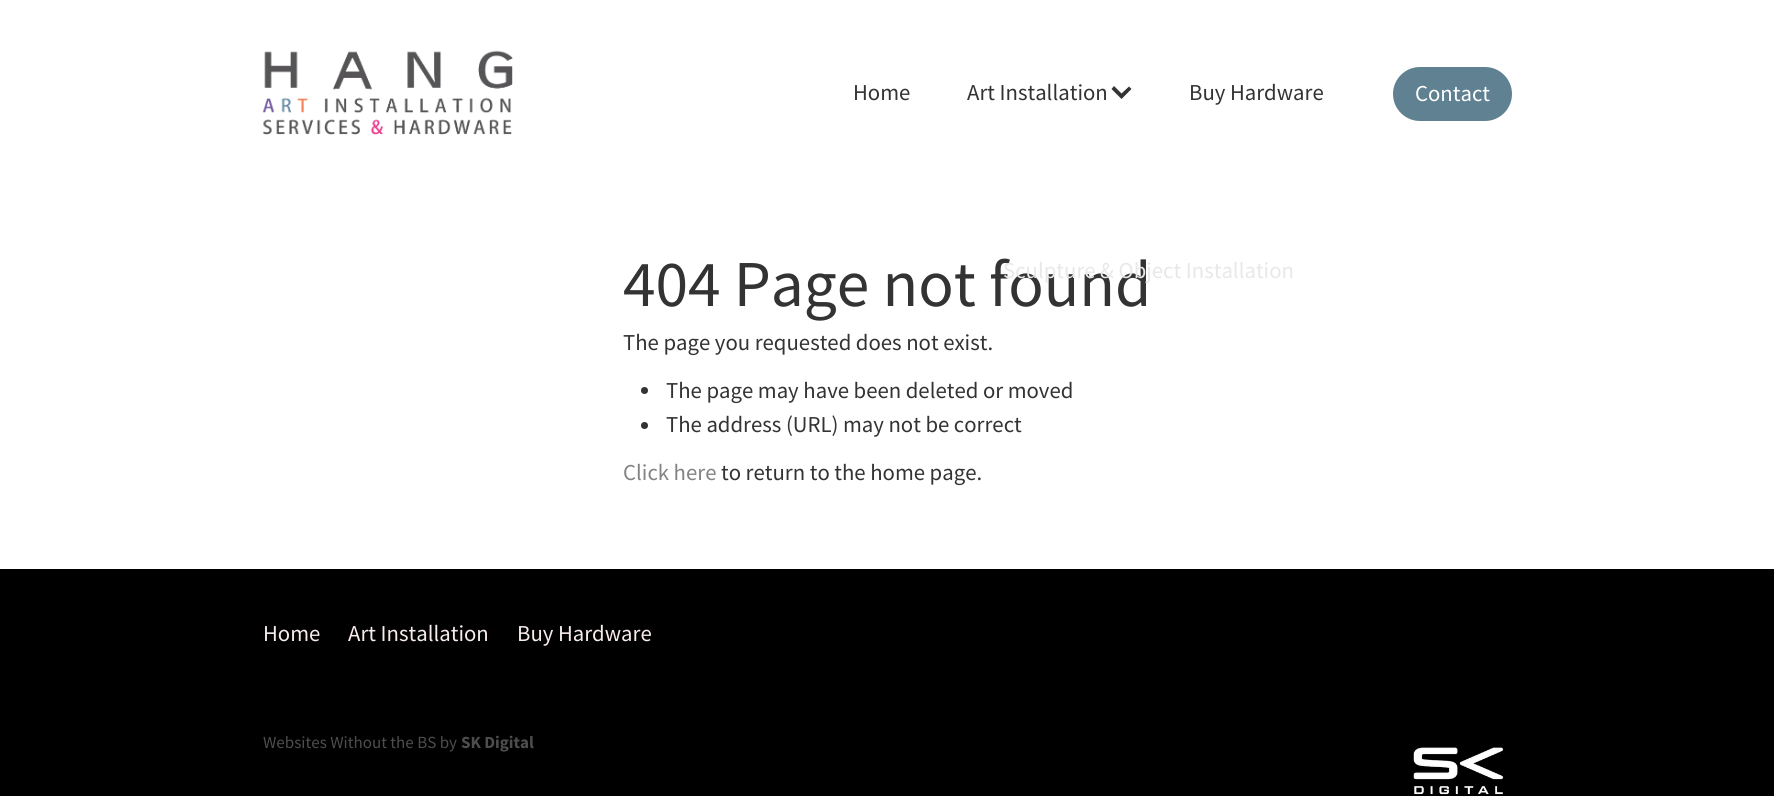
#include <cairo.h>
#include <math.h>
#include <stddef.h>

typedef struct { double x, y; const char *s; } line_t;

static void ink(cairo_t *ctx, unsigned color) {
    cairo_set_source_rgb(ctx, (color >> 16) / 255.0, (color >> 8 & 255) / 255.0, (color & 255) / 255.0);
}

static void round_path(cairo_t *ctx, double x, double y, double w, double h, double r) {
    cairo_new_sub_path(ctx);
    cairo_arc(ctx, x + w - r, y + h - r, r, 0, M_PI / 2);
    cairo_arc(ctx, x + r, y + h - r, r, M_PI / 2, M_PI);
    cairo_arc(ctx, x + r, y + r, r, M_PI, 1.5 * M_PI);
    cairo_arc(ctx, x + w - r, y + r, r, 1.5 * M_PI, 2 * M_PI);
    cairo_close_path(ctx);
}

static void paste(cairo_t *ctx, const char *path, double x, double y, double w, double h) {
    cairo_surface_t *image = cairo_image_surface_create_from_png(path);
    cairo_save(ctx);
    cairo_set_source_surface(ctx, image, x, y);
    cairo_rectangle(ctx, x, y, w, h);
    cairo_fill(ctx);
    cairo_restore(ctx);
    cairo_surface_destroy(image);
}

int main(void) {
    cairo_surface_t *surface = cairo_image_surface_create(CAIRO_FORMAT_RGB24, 1774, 796);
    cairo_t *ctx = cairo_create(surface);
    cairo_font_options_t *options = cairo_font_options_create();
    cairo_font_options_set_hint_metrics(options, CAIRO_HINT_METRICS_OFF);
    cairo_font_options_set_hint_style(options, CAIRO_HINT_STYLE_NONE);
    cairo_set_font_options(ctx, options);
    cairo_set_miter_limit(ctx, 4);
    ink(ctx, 0xFFFFFF);
    cairo_paint(ctx);
    paste(ctx, "media/1.png", 262, 50, 251, 85);
    cairo_select_font_face(ctx, "Source Sans Pro", CAIRO_FONT_SLANT_NORMAL, CAIRO_FONT_WEIGHT_NORMAL);
    cairo_set_font_size(ctx, 22.75);
    ink(ctx, 0x333333);
    cairo_move_to(ctx, 967, 100);
    cairo_show_text(ctx, "Art Installation");
    cairo_set_fill_rule(ctx, CAIRO_FILL_RULE_EVEN_ODD);
    cairo_new_path(ctx);
    cairo_move_to(ctx, 1131.5, 89);
    cairo_line_to(ctx, 1121.5, 99);
    cairo_line_to(ctx, 1111.5, 89);
    cairo_line_to(ctx, 1114, 86);
    cairo_line_to(ctx, 1121.5, 93.5);
    cairo_line_to(ctx, 1129, 86.5);
    cairo_close_path(ctx);
    cairo_fill(ctx);
    cairo_set_font_size(ctx, 65.5);
    cairo_move_to(ctx, 623, 306);
    cairo_show_text(ctx, "404 Page not found");
    cairo_set_font_size(ctx, 22.75);
    ink(ctx, 0xE8E8E8);
    cairo_move_to(ctx, 1003, 278);
    cairo_show_text(ctx, "Sculpture & Object Installation");
    ink(ctx, 0x333333);
    cairo_move_to(ctx, 853, 100);
    cairo_show_text(ctx, "Home");
    cairo_move_to(ctx, 1189, 100);
    cairo_show_text(ctx, "Buy Hardware");
    ink(ctx, 0x608192);
    round_path(ctx, 1393, 67, 119, 54, 27);
    cairo_fill(ctx);
    ink(ctx, 0xFFFFFF);
    cairo_move_to(ctx, 1415, 101);
    cairo_show_text(ctx, "Contact");
    ink(ctx, 0x333333);
    cairo_move_to(ctx, 623, 350);
    cairo_show_text(ctx, "The page you requested does not exist.");
    cairo_new_path(ctx);
    cairo_arc(ctx, 644.5, 390.5, 3.5, 0, 2 * M_PI);
    cairo_fill(ctx);
    cairo_move_to(ctx, 666, 398);
    cairo_show_text(ctx, "The page may have been deleted or moved");
    cairo_new_path(ctx);
    cairo_arc(ctx, 644.5, 425.5, 3.5, 0, 2 * M_PI);
    cairo_fill(ctx);
    cairo_move_to(ctx, 666, 432);
    cairo_show_text(ctx, "The address (URL) may not be correct");
    ink(ctx, 0x838383);
    cairo_move_to(ctx, 623, 480);
    cairo_show_text(ctx, "Click here");
    ink(ctx, 0x333333);
    cairo_move_to(ctx, 721, 480);
    cairo_show_text(ctx, "to return to the home page.");
    ink(ctx, 0x000000);
    cairo_rectangle(ctx, 0, 569, 1774, 227);
    cairo_fill(ctx);
    ink(ctx, 0xF7EBEB);
    {
        static const line_t items[] = {
            {263, 641, "Home"},
            {348, 641, "Art Installation"},
            {517, 641, "Buy Hardware"},
        };
        for (size_t i = 0; i < sizeof items / sizeof *items; i++) {
            cairo_move_to(ctx, items[i].x, items[i].y);
            cairo_show_text(ctx, items[i].s);
        }
    }
    cairo_set_font_size(ctx, 17);
    ink(ctx, 0x4D4D4D);
    cairo_move_to(ctx, 263, 748);
    cairo_show_text(ctx, "Websites Without the BS by");
    cairo_select_font_face(ctx, "Source Sans Pro", CAIRO_FONT_SLANT_NORMAL, CAIRO_FONT_WEIGHT_BOLD);
    cairo_move_to(ctx, 461, 748);
    cairo_show_text(ctx, "SK Digital");
    paste(ctx, "media/2.png", 1413, 747, 91, 48);
    cairo_surface_write_to_png(surface, "image.png");
    cairo_font_options_destroy(options);
    cairo_destroy(ctx);
    cairo_surface_destroy(surface);
    return 0;
}
